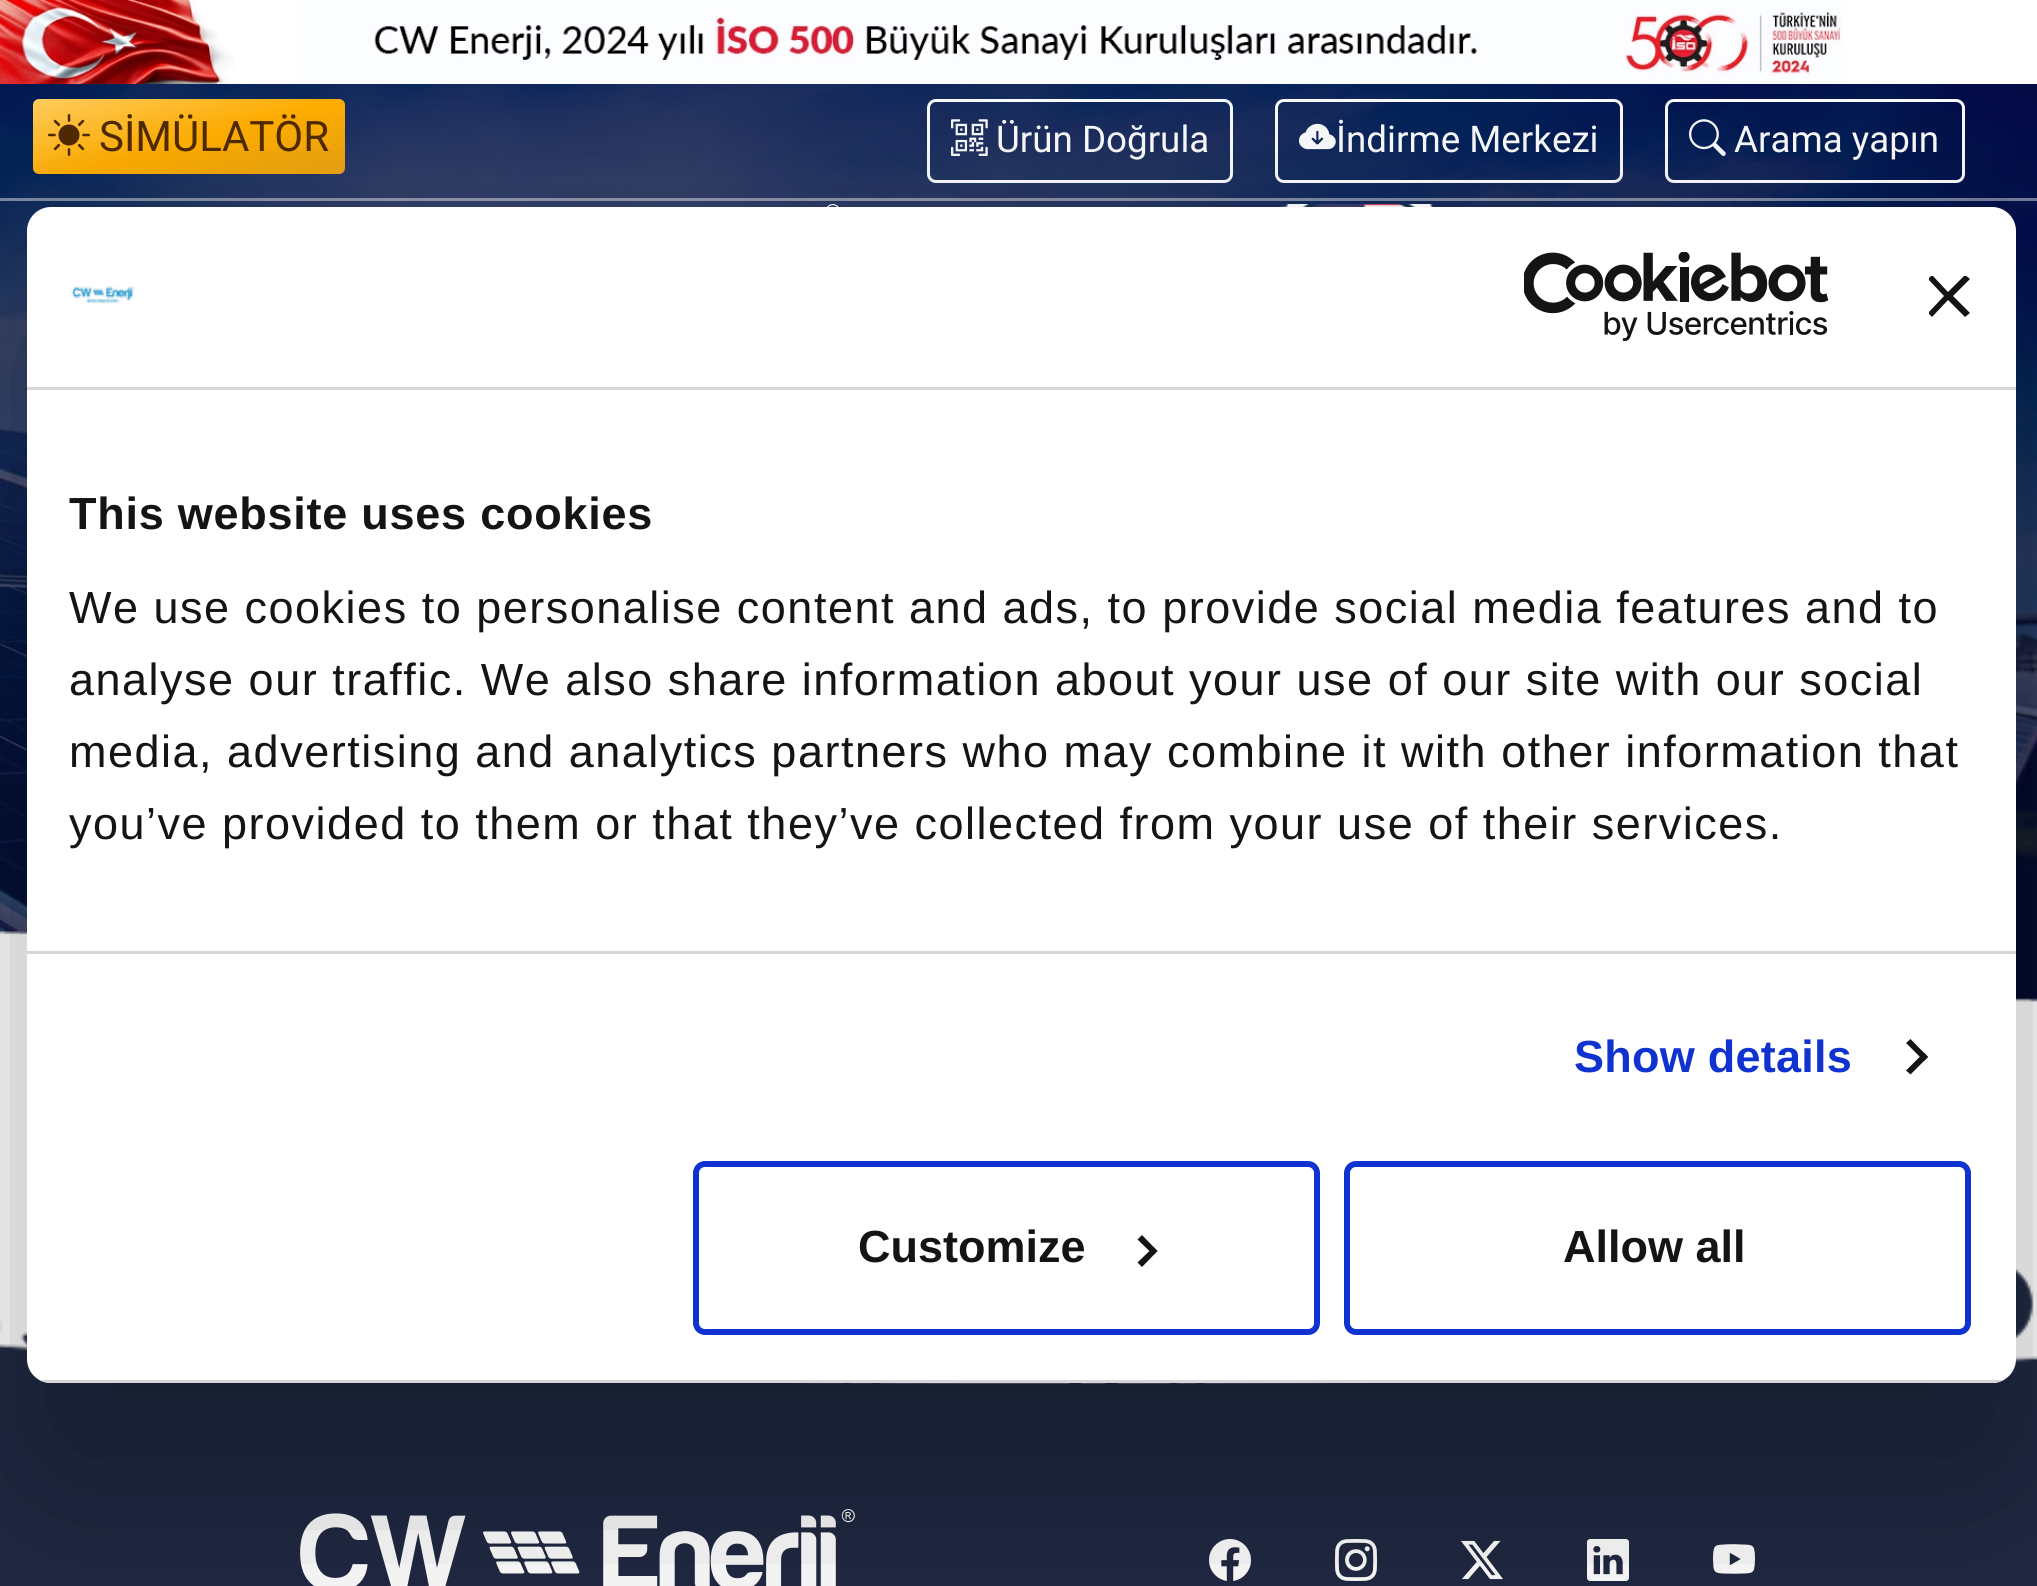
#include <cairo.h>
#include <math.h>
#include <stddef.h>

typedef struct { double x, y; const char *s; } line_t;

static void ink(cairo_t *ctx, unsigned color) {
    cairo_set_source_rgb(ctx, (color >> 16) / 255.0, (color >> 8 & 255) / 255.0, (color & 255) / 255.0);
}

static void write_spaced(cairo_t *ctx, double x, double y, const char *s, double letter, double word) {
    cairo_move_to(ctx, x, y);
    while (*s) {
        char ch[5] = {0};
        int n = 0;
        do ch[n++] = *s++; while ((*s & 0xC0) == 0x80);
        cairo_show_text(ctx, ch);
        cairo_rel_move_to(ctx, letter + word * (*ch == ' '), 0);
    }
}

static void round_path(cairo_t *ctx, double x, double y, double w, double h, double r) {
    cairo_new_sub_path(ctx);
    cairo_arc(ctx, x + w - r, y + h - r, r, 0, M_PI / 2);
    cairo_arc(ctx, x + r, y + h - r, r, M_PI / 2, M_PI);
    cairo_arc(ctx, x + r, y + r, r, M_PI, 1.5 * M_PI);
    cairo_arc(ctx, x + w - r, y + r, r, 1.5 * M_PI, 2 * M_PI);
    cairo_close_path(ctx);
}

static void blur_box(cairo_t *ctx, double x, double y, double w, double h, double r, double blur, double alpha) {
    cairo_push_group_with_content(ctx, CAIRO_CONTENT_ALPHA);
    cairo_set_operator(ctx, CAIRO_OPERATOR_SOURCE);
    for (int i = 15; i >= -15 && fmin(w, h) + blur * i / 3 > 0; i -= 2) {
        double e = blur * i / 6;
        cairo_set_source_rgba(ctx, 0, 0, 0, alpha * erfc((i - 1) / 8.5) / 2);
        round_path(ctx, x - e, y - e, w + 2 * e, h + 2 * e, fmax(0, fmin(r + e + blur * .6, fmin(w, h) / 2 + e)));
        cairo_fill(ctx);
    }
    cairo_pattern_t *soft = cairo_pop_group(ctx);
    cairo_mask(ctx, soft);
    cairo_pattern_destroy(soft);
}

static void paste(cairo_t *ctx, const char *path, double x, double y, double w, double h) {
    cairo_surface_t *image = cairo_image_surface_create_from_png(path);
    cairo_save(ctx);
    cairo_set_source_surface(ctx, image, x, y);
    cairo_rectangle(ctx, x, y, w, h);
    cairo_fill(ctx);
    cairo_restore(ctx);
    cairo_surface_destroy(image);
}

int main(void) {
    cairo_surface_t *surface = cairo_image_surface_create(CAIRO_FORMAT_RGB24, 2037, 1586);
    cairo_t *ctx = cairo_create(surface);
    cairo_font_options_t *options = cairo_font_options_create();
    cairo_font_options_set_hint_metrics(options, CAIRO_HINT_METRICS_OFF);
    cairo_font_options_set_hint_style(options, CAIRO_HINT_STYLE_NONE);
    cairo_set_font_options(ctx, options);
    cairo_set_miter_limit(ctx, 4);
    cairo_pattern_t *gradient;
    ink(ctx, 0xFFFFFF);
    cairo_paint(ctx);
    paste(ctx, "media/1.png", 0, 0, 1842, 84);
    paste(ctx, "media/2.png", 0, 84, 2037, 918);
    paste(ctx, "media/3.png", 0, 931, 2037, 101);
    cairo_set_source_rgba(ctx, 1, 1, 1, 0.45);
    cairo_rectangle(ctx, 0, 198, 2037, 3);
    cairo_fill(ctx);
    gradient = cairo_pattern_create_linear(209, 210, 169, 63);
    cairo_pattern_add_color_stop_rgba(gradient, 0, 0.914, 0.639, 0.067, 1);
    cairo_pattern_add_color_stop_rgba(gradient, 0.47, 1, 0.678, 0, 1);
    cairo_pattern_add_color_stop_rgba(gradient, 1, 1, 0.8, 0.365, 1);
    cairo_set_source(ctx, gradient);
    cairo_pattern_destroy(gradient);
    round_path(ctx, 33, 99, 312, 75, 6);
    cairo_fill(ctx);
    paste(ctx, "media/4.png", 48, 114, 42, 42);
    cairo_select_font_face(ctx, "Roboto", CAIRO_FONT_SLANT_NORMAL, CAIRO_FONT_WEIGHT_NORMAL);
    cairo_set_font_size(ctx, 42);
    ink(ctx, 0x502900);
    cairo_move_to(ctx, 99, 151);
    cairo_show_text(ctx, "SİMÜLATÖR");
    round_path(ctx, 928.5, 100.5, 303, 81, 7.5);
    ink(ctx, 0xF8F9FA);
    cairo_set_line_width(ctx, 3);
    cairo_stroke(ctx);
    paste(ctx, "media/5.png", 951, 119, 37, 37);
    cairo_set_font_size(ctx, 36.75);
    cairo_move_to(ctx, 996, 152);
    cairo_show_text(ctx, "Ürün Doğrula");
    round_path(ctx, 1276.5, 100.5, 345, 81, 7.5);
    cairo_stroke(ctx);
    paste(ctx, "media/6.png", 1299, 123, 37, 27);
    cairo_move_to(ctx, 1336, 152);
    cairo_show_text(ctx, "İndirme Merkezi");
    round_path(ctx, 1666.5, 100.5, 297, 81, 7.5);
    cairo_stroke(ctx);
    paste(ctx, "media/7.png", 1689, 119, 37, 37);
    cairo_move_to(ctx, 1734, 152);
    cairo_show_text(ctx, "Arama yapın");
    paste(ctx, "media/8.png", 827, 204, 12, 3);
    paste(ctx, "media/9.png", 1280, 204, 153, 3);
    paste(ctx, "media/10.png", 0, 1267, 2037, 152);
    ink(ctx, 0x202942);
    cairo_rectangle(ctx, 0, 1419, 2037, 167);
    cairo_fill(ctx);
    paste(ctx, "media/11.png", 300, 1509, 555, 77);
    paste(ctx, "media/12.png", 1209, 1539, 42, 42);
    paste(ctx, "media/13.png", 1335, 1539, 42, 42);
    paste(ctx, "media/14.png", 1461, 1540, 42, 40);
    paste(ctx, "media/15.png", 1587, 1539, 42, 42);
    paste(ctx, "media/16.png", 1713, 1544, 42, 30);
    cairo_save(ctx);
    cairo_set_fill_rule(ctx, CAIRO_FILL_RULE_EVEN_ODD);
    cairo_new_path(ctx);
    cairo_move_to(ctx, 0, 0);
    cairo_line_to(ctx, 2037, 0);
    cairo_line_to(ctx, 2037, 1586);
    cairo_line_to(ctx, 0, 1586);
    cairo_close_path(ctx);
    cairo_move_to(ctx, 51, 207);
    cairo_line_to(ctx, 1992, 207);
    cairo_curve_to(ctx, 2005.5, 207, 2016, 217.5, 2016, 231);
    cairo_line_to(ctx, 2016, 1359);
    cairo_curve_to(ctx, 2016, 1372.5, 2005.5, 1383, 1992, 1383);
    cairo_line_to(ctx, 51, 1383);
    cairo_curve_to(ctx, 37.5, 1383, 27, 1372.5, 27, 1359);
    cairo_line_to(ctx, 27, 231);
    cairo_curve_to(ctx, 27, 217.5, 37.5, 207, 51, 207);
    cairo_close_path(ctx);
    cairo_clip(ctx);
    ink(ctx, 0x000000);
    blur_box(ctx, 27, 303, 1989, 1176, 24, 102, 0.3);
    cairo_restore(ctx);
    ink(ctx, 0xFFFFFF);
    round_path(ctx, 27, 207, 1989, 1176, 24);
    cairo_fill(ctx);
    ink(ctx, 0xD6D6D6);
    cairo_rectangle(ctx, 27, 387, 1989, 3);
    cairo_fill(ctx);
    paste(ctx, "media/17.png", 71, 286, 65, 18);
    paste(ctx, "media/18.png", 1524, 252, 305, 89);
    cairo_save(ctx);
    cairo_rectangle(ctx, 1929, 276, 42, 42);
    cairo_clip(ctx);
    ink(ctx, 0x141414);
    cairo_new_path(ctx);
    cairo_move_to(ctx, 1970, 279);
    cairo_line_to(ctx, 1965, 275);
    cairo_line_to(ctx, 1948, 292);
    cairo_line_to(ctx, 1932, 275);
    cairo_line_to(ctx, 1928, 279);
    cairo_line_to(ctx, 1944, 296);
    cairo_line_to(ctx, 1928, 313);
    cairo_line_to(ctx, 1932, 317);
    cairo_line_to(ctx, 1948, 300);
    cairo_line_to(ctx, 1965, 317);
    cairo_line_to(ctx, 1970, 313);
    cairo_line_to(ctx, 1953, 296);
    cairo_close_path(ctx);
    cairo_fill(ctx);
    cairo_restore(ctx);
    cairo_rectangle(ctx, 27, 951, 1989, 3);
    cairo_fill(ctx);
    cairo_select_font_face(ctx, "Liberation Sans", CAIRO_FONT_SLANT_NORMAL, CAIRO_FONT_WEIGHT_BOLD);
    cairo_set_font_size(ctx, 45);
    ink(ctx, 0x141414);
    write_spaced(ctx, 69, 529, "This website uses cookies", 0.75, 0);
    cairo_select_font_face(ctx, "Liberation Sans", CAIRO_FONT_SLANT_NORMAL, CAIRO_FONT_WEIGHT_NORMAL);
    {
        static const line_t items[] = {
            {69, 623, "We use cookies to personalise content and ads, to provide social media features and to"},
            {69, 695, "analyse our traffic. We also share information about your use of our site with our social"},
            {69, 767, "media, advertising and analytics partners who may combine it with other information that"},
            {69, 839, "you’ve provided to them or that they’ve collected from your use of their services."},
        };
        for (size_t i = 0; i < sizeof items / sizeof *items; i++) {
            write_spaced(ctx, items[i].x, items[i].y, items[i].s, 1.5, 0);
        }
    }
    cairo_select_font_face(ctx, "Liberation Sans", CAIRO_FONT_SLANT_NORMAL, CAIRO_FONT_WEIGHT_BOLD);
    ink(ctx, 0x1032CF);
    write_spaced(ctx, 1574, 1072, "Show details", 0.25, 0);
    ink(ctx, 0x141414);
    cairo_new_path(ctx);
    cairo_move_to(ctx, 1910.5, 1039);
    cairo_line_to(ctx, 1928, 1057);
    cairo_line_to(ctx, 1924, 1061);
    cairo_line_to(ctx, 1906, 1043);
    cairo_close_path(ctx);
    cairo_fill(ctx);
    cairo_new_path(ctx);
    cairo_move_to(ctx, 1924, 1052.5);
    cairo_line_to(ctx, 1928, 1057);
    cairo_line_to(ctx, 1910.5, 1074.5);
    cairo_line_to(ctx, 1906, 1070.5);
    cairo_close_path(ctx);
    cairo_fill(ctx);
    cairo_save(ctx);
    round_path(ctx, 27, 207, 1989, 1176, 24);
    cairo_clip(ctx);
    ink(ctx, 0xD6D6D6);
    cairo_rectangle(ctx, 39, 1380, 1965, 3);
    cairo_fill(ctx);
    cairo_restore(ctx);
    round_path(ctx, 696, 1164, 621, 168, 9);
    ink(ctx, 0x1032CF);
    cairo_set_line_width(ctx, 6);
    cairo_stroke(ctx);
    ink(ctx, 0x141414);
    cairo_move_to(ctx, 858, 1262);
    cairo_show_text(ctx, "Customize");
    cairo_new_path(ctx);
    cairo_move_to(ctx, 1142, 1235);
    cairo_line_to(ctx, 1157.5, 1251);
    cairo_line_to(ctx, 1153.5, 1255);
    cairo_line_to(ctx, 1137.5, 1239.5);
    cairo_close_path(ctx);
    cairo_fill(ctx);
    cairo_new_path(ctx);
    cairo_move_to(ctx, 1153.5, 1247);
    cairo_line_to(ctx, 1157.5, 1251);
    cairo_line_to(ctx, 1142, 1267);
    cairo_line_to(ctx, 1137.5, 1262.5);
    cairo_close_path(ctx);
    cairo_fill(ctx);
    round_path(ctx, 1347, 1164, 621, 168, 9);
    ink(ctx, 0x1032CF);
    cairo_stroke(ctx);
    ink(ctx, 0x141414);
    cairo_move_to(ctx, 1563, 1262);
    cairo_show_text(ctx, "Allow all");
    cairo_surface_write_to_png(surface, "image.png");
    cairo_font_options_destroy(options);
    cairo_destroy(ctx);
    cairo_surface_destroy(surface);
    return 0;
}
